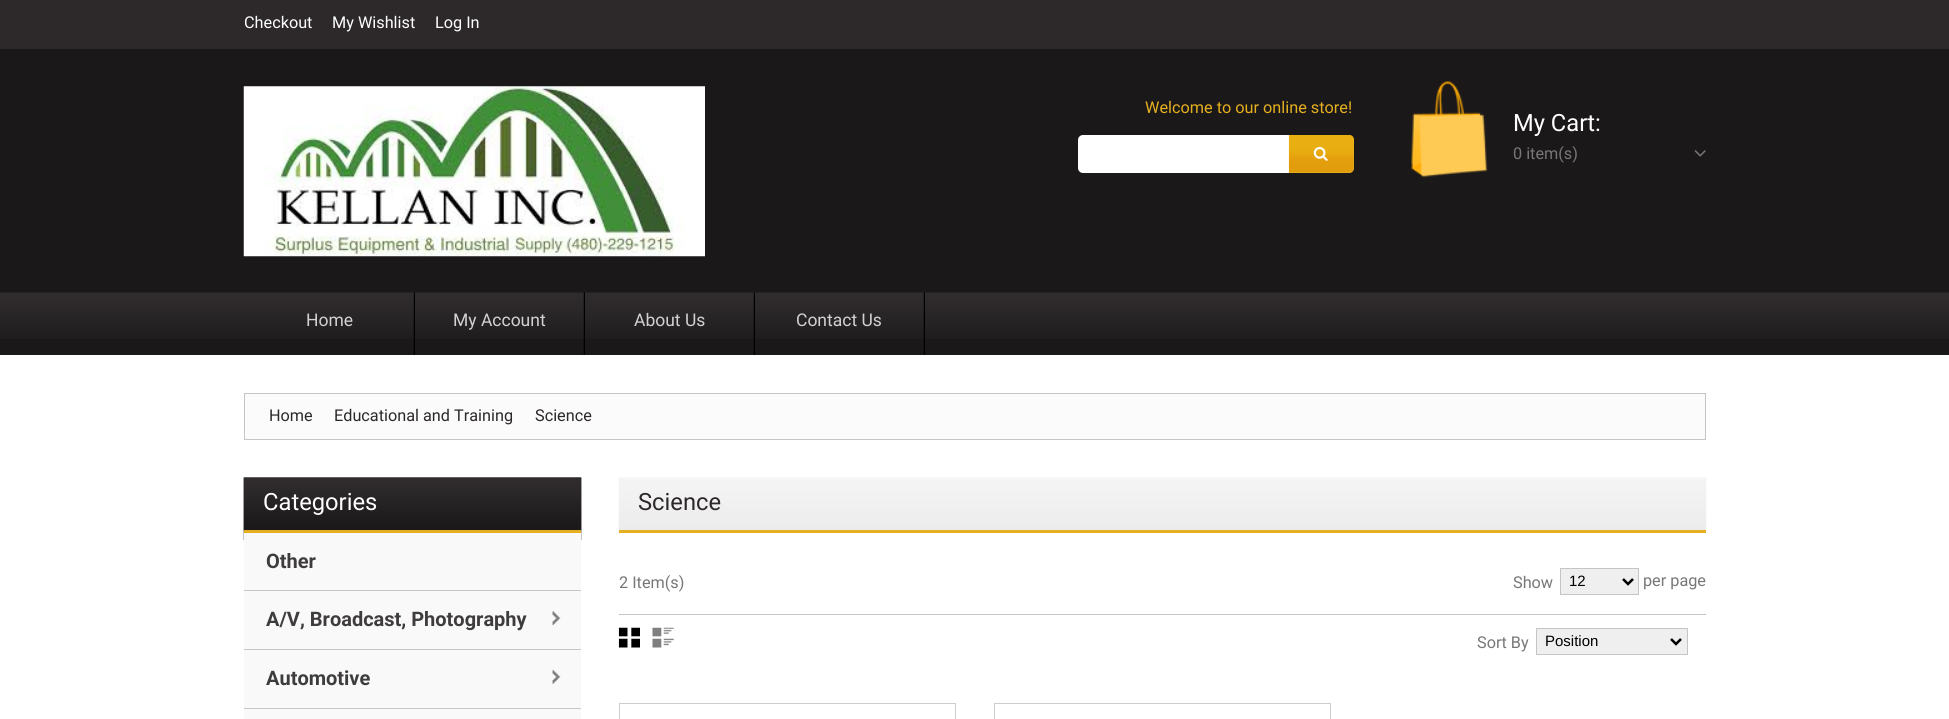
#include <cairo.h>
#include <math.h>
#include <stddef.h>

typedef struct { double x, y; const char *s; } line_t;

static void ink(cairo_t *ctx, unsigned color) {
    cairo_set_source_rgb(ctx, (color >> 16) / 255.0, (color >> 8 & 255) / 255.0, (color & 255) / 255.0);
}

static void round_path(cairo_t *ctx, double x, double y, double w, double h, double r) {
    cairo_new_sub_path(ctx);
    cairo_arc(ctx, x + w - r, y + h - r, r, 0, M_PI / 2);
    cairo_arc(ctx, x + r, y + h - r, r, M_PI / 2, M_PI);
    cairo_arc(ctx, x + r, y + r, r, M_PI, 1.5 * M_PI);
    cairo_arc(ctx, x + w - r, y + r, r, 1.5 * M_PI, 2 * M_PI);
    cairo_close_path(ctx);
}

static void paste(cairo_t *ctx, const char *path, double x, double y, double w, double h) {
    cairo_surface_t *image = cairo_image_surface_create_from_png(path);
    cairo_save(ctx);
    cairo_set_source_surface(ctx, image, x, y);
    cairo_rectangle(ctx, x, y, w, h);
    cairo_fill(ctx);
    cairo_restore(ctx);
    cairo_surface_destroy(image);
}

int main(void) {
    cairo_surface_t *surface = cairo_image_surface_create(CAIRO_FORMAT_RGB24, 1949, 719);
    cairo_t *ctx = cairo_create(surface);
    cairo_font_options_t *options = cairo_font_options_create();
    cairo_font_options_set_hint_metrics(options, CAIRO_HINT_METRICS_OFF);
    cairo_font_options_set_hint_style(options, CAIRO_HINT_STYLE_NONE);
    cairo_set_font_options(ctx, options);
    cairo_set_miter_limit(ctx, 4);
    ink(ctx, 0xFFFFFF);
    cairo_paint(ctx);
    ink(ctx, 0x1B181A);
    cairo_rectangle(ctx, 0, 49, 1949, 244);
    cairo_fill(ctx);
    ink(ctx, 0x2D292B);
    cairo_rectangle(ctx, 0, 0, 1949, 49);
    cairo_fill(ctx);
    cairo_select_font_face(ctx, "Roboto", CAIRO_FONT_SLANT_NORMAL, CAIRO_FONT_WEIGHT_NORMAL);
    cairo_set_font_size(ctx, 16.25);
    ink(ctx, 0xFFFFFF);
    {
        static const line_t items[] = {
            {244, 28, "Checkout"},
            {332, 28, "My Wishlist"},
            {435, 28, "Log In"},
        };
        for (size_t i = 0; i < sizeof items / sizeof *items; i++) {
            cairo_move_to(ctx, items[i].x, items[i].y);
            cairo_show_text(ctx, items[i].s);
        }
    }
    paste(ctx, "media/1.png", 243, 86, 462, 171);
    ink(ctx, 0xE5AF1F);
    cairo_move_to(ctx, 1145, 113);
    cairo_show_text(ctx, "Welcome to our online store!");
    ink(ctx, 0xFFFFFF);
    round_path(ctx, 1078, 135, 275, 38, 5);
    cairo_fill(ctx);
    ink(ctx, 0xE5AF1F);
    cairo_new_path(ctx);
    cairo_move_to(ctx, 1289, 135);
    cairo_line_to(ctx, 1349, 135);
    cairo_curve_to(ctx, 1352, 135, 1354, 137, 1354, 140);
    cairo_line_to(ctx, 1354, 168);
    cairo_curve_to(ctx, 1354, 171, 1352, 173, 1349, 173);
    cairo_line_to(ctx, 1289, 173);
    cairo_close_path(ctx);
    cairo_fill(ctx);
    paste(ctx, "media/2.png", 1288, 135, 66, 38);
    paste(ctx, "media/3.png", 1313, 147, 15, 14);
    paste(ctx, "media/4.png", 1411, 81, 77, 97);
    cairo_set_font_size(ctx, 23.75);
    ink(ctx, 0xFFFFFF);
    cairo_move_to(ctx, 1513, 131);
    cairo_show_text(ctx, "My Cart:");
    cairo_set_font_size(ctx, 16.25);
    ink(ctx, 0x777777);
    cairo_move_to(ctx, 1513, 159);
    cairo_show_text(ctx, "0 item(s)");
    paste(ctx, "media/5.png", 1694, 150, 12, 7);
    ink(ctx, 0x1B181A);
    cairo_rectangle(ctx, 0, 339, 1949, 16);
    cairo_fill(ctx);
    paste(ctx, "media/6.png", 0, 292, 1949, 47);
    paste(ctx, "media/7.png", 413, 292, 2, 63);
    cairo_set_font_size(ctx, 17.5);
    ink(ctx, 0xD2D2D2);
    cairo_move_to(ctx, 306, 326);
    cairo_show_text(ctx, "Home");
    paste(ctx, "media/7.png", 583, 292, 2, 63);
    cairo_move_to(ctx, 453, 326);
    cairo_show_text(ctx, "My Account");
    paste(ctx, "media/7.png", 753, 292, 2, 63);
    cairo_move_to(ctx, 634, 326);
    cairo_show_text(ctx, "About Us");
    paste(ctx, "media/7.png", 923, 292, 2, 63);
    cairo_move_to(ctx, 796, 326);
    cairo_show_text(ctx, "Contact Us");
    ink(ctx, 0xFBFBFB);
    cairo_rectangle(ctx, 244.5, 393.5, 1461, 46);
    cairo_fill_preserve(ctx);
    ink(ctx, 0xC6C5C5);
    cairo_set_line_width(ctx, 1);
    cairo_stroke(ctx);
    cairo_set_font_size(ctx, 16.25);
    ink(ctx, 0x2C282A);
    {
        static const line_t items[] = {
            {269, 421, "Home"},
            {334, 421, "Educational and Training"},
            {535, 421, "Science"},
        };
        for (size_t i = 0; i < sizeof items / sizeof *items; i++) {
            cairo_move_to(ctx, items[i].x, items[i].y);
            cairo_show_text(ctx, items[i].s);
        }
    }
    paste(ctx, "media/8.png", 243, 477, 339, 63);
    paste(ctx, "media/9.png", 243, 477, 339, 55);
    ink(ctx, 0xE5AF1F);
    cairo_rectangle(ctx, 244, 530, 337, 3);
    cairo_fill(ctx);
    cairo_set_font_size(ctx, 23.75);
    ink(ctx, 0xFFFFFF);
    cairo_move_to(ctx, 263, 510);
    cairo_show_text(ctx, "Categories");
    ink(ctx, 0xC7C7C7);
    cairo_rectangle(ctx, 244, 590, 337, 1);
    cairo_fill(ctx);
    ink(ctx, 0xF9F9F9);
    cairo_rectangle(ctx, 244, 533, 337, 57);
    cairo_fill(ctx);
    cairo_select_font_face(ctx, "Roboto", CAIRO_FONT_SLANT_NORMAL, CAIRO_FONT_WEIGHT_BOLD);
    cairo_set_font_size(ctx, 20);
    ink(ctx, 0x3F3C3D);
    cairo_move_to(ctx, 266, 568);
    cairo_show_text(ctx, "Other");
    ink(ctx, 0xC7C7C7);
    cairo_rectangle(ctx, 244, 649, 337, 1);
    cairo_fill(ctx);
    ink(ctx, 0xF9F9F9);
    cairo_rectangle(ctx, 244, 591, 337, 58);
    cairo_fill(ctx);
    ink(ctx, 0x3F3C3D);
    cairo_move_to(ctx, 266, 626);
    cairo_show_text(ctx, "A/V, Broadcast, Photography");
    paste(ctx, "media/10.png", 552, 611, 9, 14);
    ink(ctx, 0xC7C7C7);
    cairo_rectangle(ctx, 244, 708, 337, 1);
    cairo_fill(ctx);
    ink(ctx, 0xF9F9F9);
    cairo_rectangle(ctx, 244, 650, 337, 58);
    cairo_fill(ctx);
    ink(ctx, 0x3F3C3D);
    cairo_move_to(ctx, 266, 685);
    cairo_show_text(ctx, "Automotive");
    paste(ctx, "media/11.png", 552, 669, 9, 15);
    ink(ctx, 0xF9F9F9);
    cairo_rectangle(ctx, 244, 709, 337, 10);
    cairo_fill(ctx);
    paste(ctx, "media/12.png", 618, 477, 1089, 54);
    ink(ctx, 0xE5AF1F);
    cairo_rectangle(ctx, 619, 530, 1087, 3);
    cairo_fill(ctx);
    cairo_select_font_face(ctx, "Roboto", CAIRO_FONT_SLANT_NORMAL, CAIRO_FONT_WEIGHT_NORMAL);
    cairo_set_font_size(ctx, 23.75);
    ink(ctx, 0x2C282A);
    cairo_move_to(ctx, 638, 510);
    cairo_show_text(ctx, "Science");
    ink(ctx, 0xC6C5C5);
    cairo_rectangle(ctx, 619, 614, 1087, 1);
    cairo_fill(ctx);
    cairo_set_font_size(ctx, 16.25);
    ink(ctx, 0x777777);
    cairo_move_to(ctx, 619, 588);
    cairo_show_text(ctx, "2 Item(s)");
    cairo_move_to(ctx, 1513, 588);
    cairo_show_text(ctx, "Show");
    ink(ctx, 0xEFEFEF);
    cairo_rectangle(ctx, 1560.5, 568.5, 78, 26);
    cairo_fill_preserve(ctx);
    ink(ctx, 0xC6C5C5);
    cairo_stroke(ctx);
    cairo_new_path(ctx);
    cairo_move_to(ctx, 1623, 579);
    cairo_line_to(ctx, 1628, 584);
    cairo_line_to(ctx, 1633, 579);
    ink(ctx, 0x000000);
    cairo_set_line_width(ctx, 2.5);
    cairo_stroke(ctx);
    cairo_select_font_face(ctx, "Liberation Sans", CAIRO_FONT_SLANT_NORMAL, CAIRO_FONT_WEIGHT_NORMAL);
    cairo_set_font_size(ctx, 15);
    cairo_move_to(ctx, 1569, 586);
    cairo_show_text(ctx, "12");
    cairo_select_font_face(ctx, "Roboto", CAIRO_FONT_SLANT_NORMAL, CAIRO_FONT_WEIGHT_NORMAL);
    cairo_set_font_size(ctx, 16.25);
    ink(ctx, 0x777777);
    cairo_move_to(ctx, 1643, 586);
    cairo_show_text(ctx, "per page");
    paste(ctx, "media/13.png", 618, 627, 22, 21);
    paste(ctx, "media/14.png", 652, 627, 22, 21);
    cairo_move_to(ctx, 1477, 648);
    cairo_show_text(ctx, "Sort By");
    ink(ctx, 0xEFEFEF);
    cairo_rectangle(ctx, 1536.5, 628.5, 151, 26);
    cairo_fill_preserve(ctx);
    ink(ctx, 0xC6C5C5);
    cairo_set_line_width(ctx, 1);
    cairo_stroke(ctx);
    cairo_new_path(ctx);
    cairo_move_to(ctx, 1671, 639);
    cairo_line_to(ctx, 1676, 644);
    cairo_line_to(ctx, 1681, 639);
    ink(ctx, 0x000000);
    cairo_set_line_width(ctx, 2.5);
    cairo_stroke(ctx);
    cairo_select_font_face(ctx, "Liberation Sans", CAIRO_FONT_SLANT_NORMAL, CAIRO_FONT_WEIGHT_NORMAL);
    cairo_set_font_size(ctx, 15);
    cairo_move_to(ctx, 1545, 646);
    cairo_show_text(ctx, "Position");
    cairo_rectangle(ctx, 619.5, 703.5, 336, 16);
    ink(ctx, 0xCECDCD);
    cairo_set_line_width(ctx, 1);
    cairo_stroke(ctx);
    cairo_rectangle(ctx, 994.5, 703.5, 336, 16);
    cairo_stroke(ctx);
    cairo_surface_write_to_png(surface, "image.png");
    cairo_font_options_destroy(options);
    cairo_destroy(ctx);
    cairo_surface_destroy(surface);
    return 0;
}
